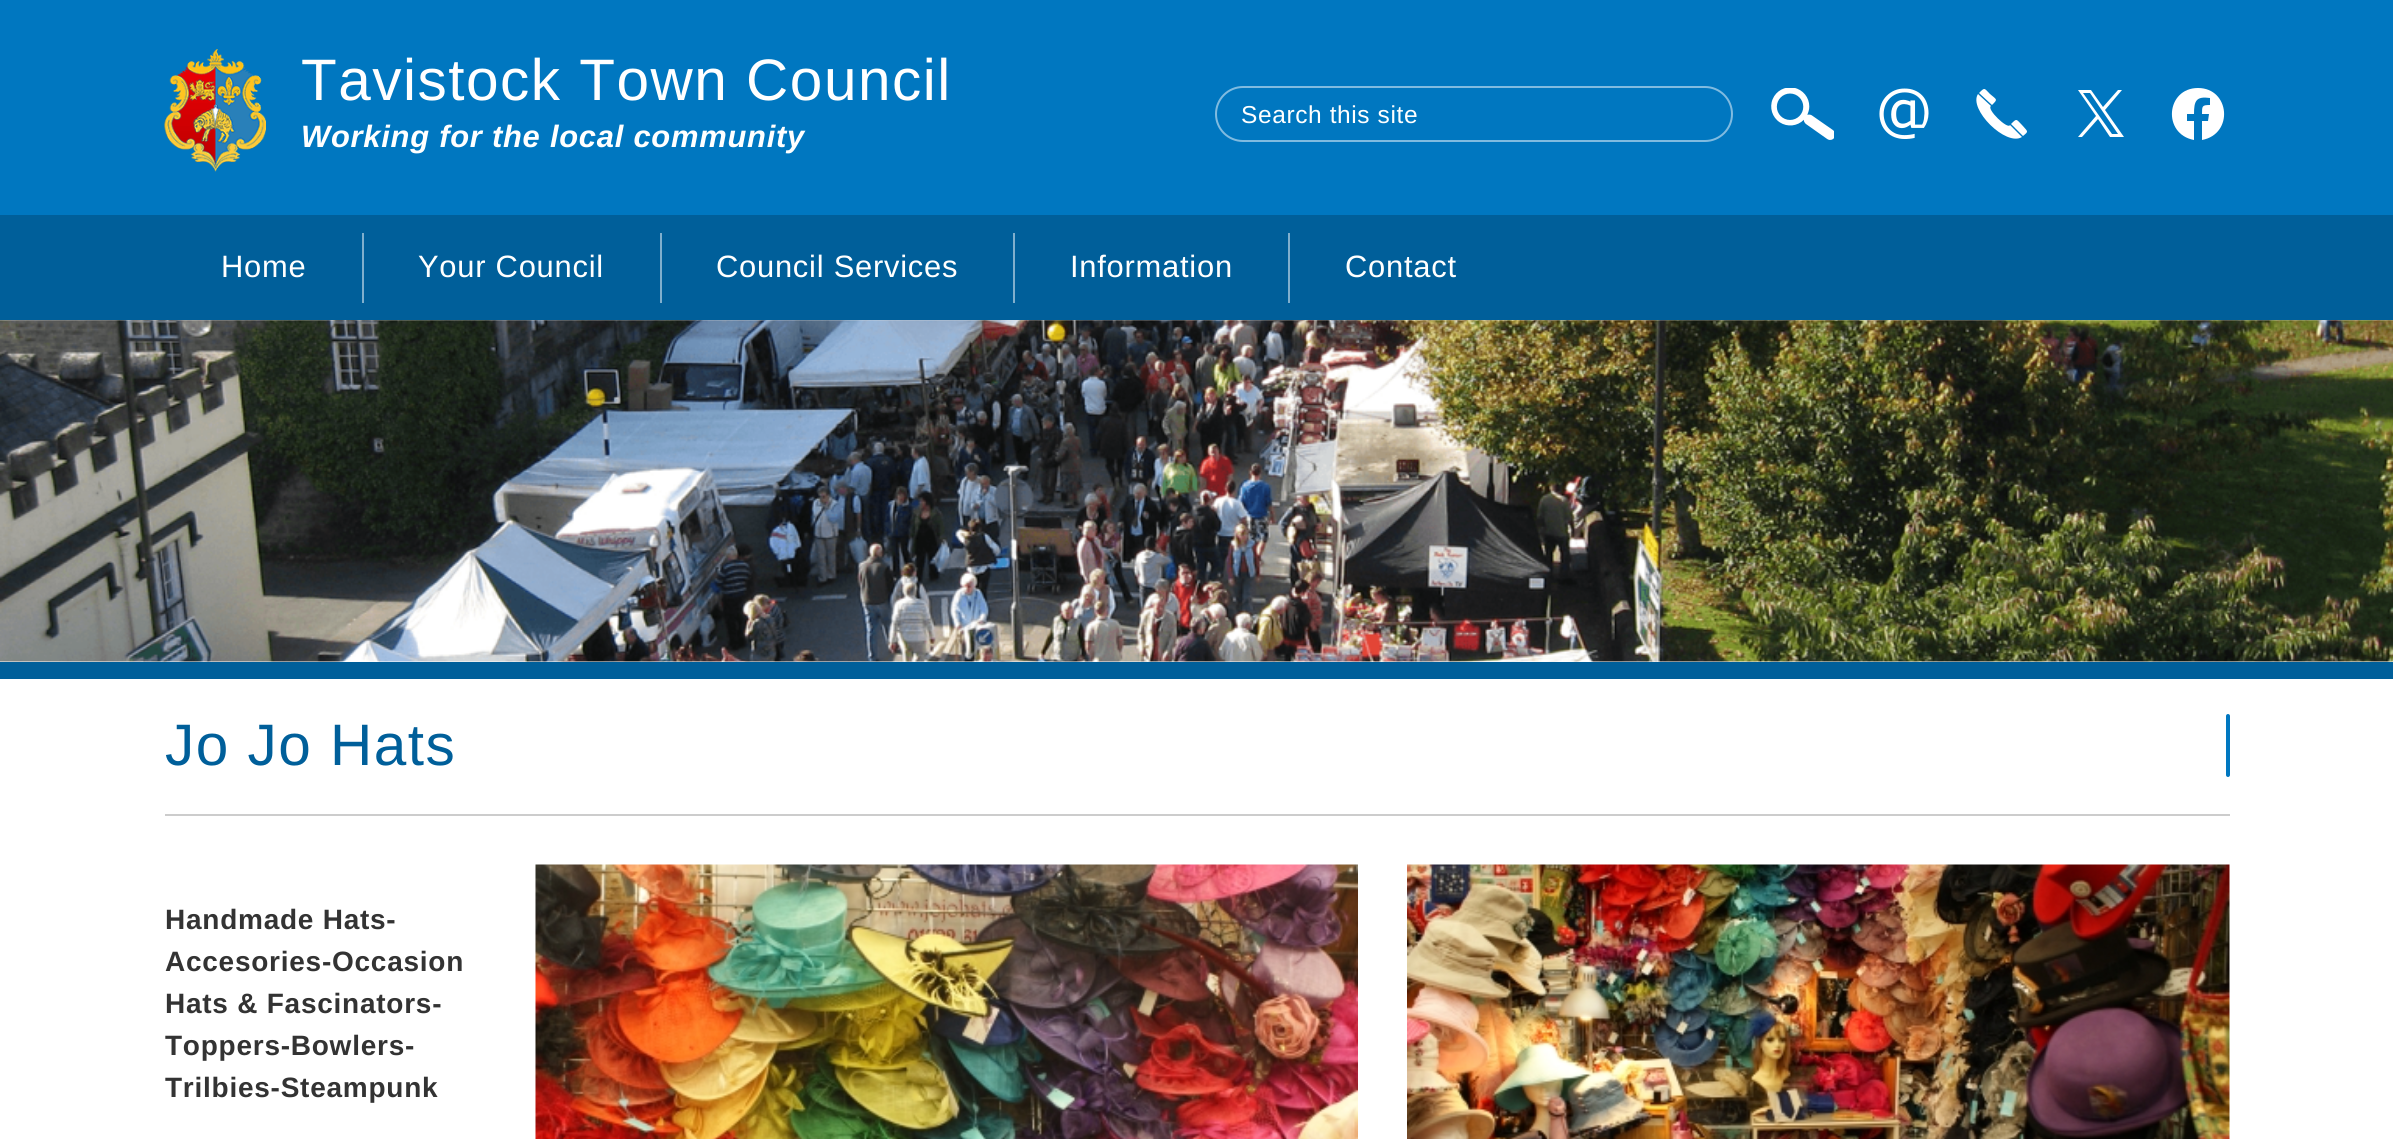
#include <cairo.h>
#include <math.h>
#include <stddef.h>

typedef struct { double x, y; const char *s; } line_t;

static void ink(cairo_t *ctx, unsigned color) {
    cairo_set_source_rgb(ctx, (color >> 16) / 255.0, (color >> 8 & 255) / 255.0, (color & 255) / 255.0);
}

static void write_spaced(cairo_t *ctx, double x, double y, const char *s, double letter, double word) {
    cairo_move_to(ctx, x, y);
    while (*s) {
        char ch[5] = {0};
        int n = 0;
        do ch[n++] = *s++; while ((*s & 0xC0) == 0x80);
        cairo_show_text(ctx, ch);
        cairo_rel_move_to(ctx, letter + word * (*ch == ' '), 0);
    }
}

static void round_path(cairo_t *ctx, double x, double y, double w, double h, double r) {
    cairo_new_sub_path(ctx);
    cairo_arc(ctx, x + w - r, y + h - r, r, 0, M_PI / 2);
    cairo_arc(ctx, x + r, y + h - r, r, M_PI / 2, M_PI);
    cairo_arc(ctx, x + r, y + r, r, M_PI, 1.5 * M_PI);
    cairo_arc(ctx, x + w - r, y + r, r, 1.5 * M_PI, 2 * M_PI);
    cairo_close_path(ctx);
}

static void blur_box(cairo_t *ctx, double x, double y, double w, double h, double r, double blur, double alpha) {
    cairo_push_group_with_content(ctx, CAIRO_CONTENT_ALPHA);
    cairo_set_operator(ctx, CAIRO_OPERATOR_SOURCE);
    for (int i = 15; i >= -15 && fmin(w, h) + blur * i / 3 > 0; i -= 2) {
        double e = blur * i / 6;
        cairo_set_source_rgba(ctx, 0, 0, 0, alpha * erfc((i - 1) / 8.5) / 2);
        round_path(ctx, x - e, y - e, w + 2 * e, h + 2 * e, fmax(0, fmin(r + e + blur * .6, fmin(w, h) / 2 + e)));
        cairo_fill(ctx);
    }
    cairo_pattern_t *soft = cairo_pop_group(ctx);
    cairo_mask(ctx, soft);
    cairo_pattern_destroy(soft);
}

static void paste(cairo_t *ctx, const char *path, double x, double y, double w, double h) {
    cairo_surface_t *image = cairo_image_surface_create_from_png(path);
    cairo_save(ctx);
    cairo_set_source_surface(ctx, image, x, y);
    cairo_rectangle(ctx, x, y, w, h);
    cairo_fill(ctx);
    cairo_restore(ctx);
    cairo_surface_destroy(image);
}

int main(void) {
    cairo_surface_t *surface = cairo_image_surface_create(CAIRO_FORMAT_RGB24, 2393, 1139);
    cairo_t *ctx = cairo_create(surface);
    cairo_font_options_t *options = cairo_font_options_create();
    cairo_font_options_set_hint_metrics(options, CAIRO_HINT_METRICS_OFF);
    cairo_font_options_set_hint_style(options, CAIRO_HINT_STYLE_NONE);
    cairo_set_font_options(ctx, options);
    cairo_set_miter_limit(ctx, 4);
    ink(ctx, 0xFFFFFF);
    cairo_paint(ctx);
    ink(ctx, 0x000000);
    blur_box(ctx, 2, 219, 2390, 101, 0, 2, 0.1);
    blur_box(ctx, 0, 217, 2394, 105, 0, 2.5, 0.1);
    ink(ctx, 0x0077C0);
    cairo_rectangle(ctx, 0, 0, 2393, 215);
    cairo_fill(ctx);
    paste(ctx, "media/1.png", 164, 49, 102, 123);
    cairo_select_font_face(ctx, "Liberation Sans", CAIRO_FONT_SLANT_NORMAL, CAIRO_FONT_WEIGHT_NORMAL);
    cairo_set_font_size(ctx, 58.5);
    ink(ctx, 0xFFFFFF);
    write_spaced(ctx, 301, 100, "Tavistock Town Council", 1.5, 0);
    cairo_select_font_face(ctx, "Liberation Sans", CAIRO_FONT_SLANT_ITALIC, CAIRO_FONT_WEIGHT_BOLD);
    cairo_set_font_size(ctx, 30.9);
    write_spaced(ctx, 301, 147, "Working for the local community", 0.75, 0);
    round_path(ctx, 1216, 87, 516, 54, 27);
    ink(ctx, 0x80BBE0);
    cairo_stroke(ctx);
    cairo_select_font_face(ctx, "Liberation Sans", CAIRO_FONT_SLANT_NORMAL, CAIRO_FONT_WEIGHT_NORMAL);
    cairo_set_font_size(ctx, 24.5);
    ink(ctx, 0xFFFFFF);
    write_spaced(ctx, 1241, 123, "Search this site", 0.6, 0);
    paste(ctx, "media/2.png", 1771, 88, 63, 52);
    paste(ctx, "media/3.png", 1879, 88, 50, 51);
    cairo_new_path(ctx);
    cairo_move_to(ctx, 1979, 93);
    cairo_curve_to(ctx, 1985, 87, 1984, 88, 1990, 94);
    cairo_curve_to(ctx, 1997, 100, 1998, 99, 1992, 105);
    cairo_move_to(ctx, 2011, 124);
    cairo_curve_to(ctx, 2017, 118, 2016, 119, 2022, 125);
    cairo_curve_to(ctx, 2028, 132, 2029, 131, 2023, 136);
    cairo_move_to(ctx, 1978, 94);
    cairo_curve_to(ctx, 1968, 109, 2006, 147, 2022, 137);
    cairo_line_to(ctx, 2010, 125);
    cairo_curve_to(ctx, 2008, 130, 1986, 109, 1991, 106);
    cairo_fill(ctx);
    cairo_new_path(ctx);
    cairo_move_to(ctx, 2105, 110);
    cairo_line_to(ctx, 2122, 90);
    cairo_line_to(ctx, 2118, 90);
    cairo_line_to(ctx, 2103, 107);
    cairo_line_to(ctx, 2091, 90);
    cairo_line_to(ctx, 2078, 90);
    cairo_line_to(ctx, 2096, 116);
    cairo_line_to(ctx, 2078, 137);
    cairo_line_to(ctx, 2082, 137);
    cairo_line_to(ctx, 2098, 119);
    cairo_line_to(ctx, 2110, 137);
    cairo_line_to(ctx, 2124, 137);
    cairo_close_path(ctx);
    cairo_move_to(ctx, 2100, 117);
    cairo_line_to(ctx, 2083, 93);
    cairo_line_to(ctx, 2090, 93);
    cairo_line_to(ctx, 2118, 134);
    cairo_line_to(ctx, 2112, 134);
    cairo_close_path(ctx);
    cairo_fill(ctx);
    cairo_new_path(ctx);
    cairo_move_to(ctx, 2198, 88);
    cairo_curve_to(ctx, 2166, 88, 2162, 134, 2194, 140);
    cairo_line_to(ctx, 2194, 121);
    cairo_line_to(ctx, 2187, 121);
    cairo_line_to(ctx, 2187, 114);
    cairo_line_to(ctx, 2194, 114);
    cairo_curve_to(ctx, 2194, 101, 2196, 96, 2210, 98);
    cairo_line_to(ctx, 2210, 105);
    cairo_curve_to(ctx, 2202, 105, 2202, 106, 2202, 114);
    cairo_line_to(ctx, 2209, 114);
    cairo_line_to(ctx, 2208, 121);
    cairo_line_to(ctx, 2202, 121);
    cairo_line_to(ctx, 2202, 140);
    cairo_curve_to(ctx, 2234, 134, 2230, 88, 2198, 88);
    cairo_close_path(ctx);
    cairo_fill(ctx);
    ink(ctx, 0x005F9A);
    cairo_rectangle(ctx, 0, 215, 2393, 105);
    cairo_fill(ctx);
    cairo_set_font_size(ctx, 30.9);
    ink(ctx, 0xFFFFFF);
    write_spaced(ctx, 221, 277, "Home", 0.75, 0);
    ink(ctx, 0x80AFCD);
    cairo_rectangle(ctx, 362, 233, 2, 70);
    cairo_fill(ctx);
    ink(ctx, 0xFFFFFF);
    write_spaced(ctx, 418, 277, "Your Council", 0.75, 0);
    ink(ctx, 0x80AFCD);
    cairo_rectangle(ctx, 660, 233, 2, 70);
    cairo_fill(ctx);
    ink(ctx, 0xFFFFFF);
    write_spaced(ctx, 716, 277, "Council Services", 0.75, 0);
    ink(ctx, 0x80AFCD);
    cairo_rectangle(ctx, 1013, 233, 2, 70);
    cairo_fill(ctx);
    ink(ctx, 0xFFFFFF);
    write_spaced(ctx, 1070, 277, "Information", 0.75, 0);
    ink(ctx, 0x80AFCD);
    cairo_rectangle(ctx, 1288, 233, 2, 70);
    cairo_fill(ctx);
    ink(ctx, 0xFFFFFF);
    write_spaced(ctx, 1345, 277, "Contact", 0.75, 0);
    ink(ctx, 0x005F9A);
    cairo_rectangle(ctx, 0, 662, 2393, 17);
    cairo_fill(ctx);
    paste(ctx, "media/4.png", 0, 320, 2393, 342);
    ink(ctx, 0xCCCCCC);
    cairo_rectangle(ctx, 165, 814, 2065, 2);
    cairo_fill(ctx);
    cairo_set_font_size(ctx, 58.5);
    ink(ctx, 0x005F9A);
    write_spaced(ctx, 165, 765, "Jo Jo Hats", 1.5, 0);
    ink(ctx, 0x0077C0);
    round_path(ctx, 2226, 714, 4, 63, 2);
    cairo_fill(ctx);
    cairo_select_font_face(ctx, "Liberation Sans", CAIRO_FONT_SLANT_NORMAL, CAIRO_FONT_WEIGHT_BOLD);
    cairo_set_font_size(ctx, 28);
    ink(ctx, 0x333333);
    {
        static const line_t items[] = {
            {165, 929, "Handmade Hats-"},
            {165, 971, "Accesories-Occasion"},
            {165, 1013, "Hats & Fascinators-"},
            {165, 1055, "Toppers-Bowlers-"},
            {165, 1097, "Trilbies-Steampunk"},
        };
        for (size_t i = 0; i < sizeof items / sizeof *items; i++) {
            write_spaced(ctx, items[i].x, items[i].y, items[i].s, 0.75, 0);
        }
    }
    paste(ctx, "media/5.png", 535, 864, 823, 275);
    paste(ctx, "media/6.png", 1407, 864, 823, 275);
    cairo_surface_write_to_png(surface, "image.png");
    cairo_font_options_destroy(options);
    cairo_destroy(ctx);
    cairo_surface_destroy(surface);
    return 0;
}
